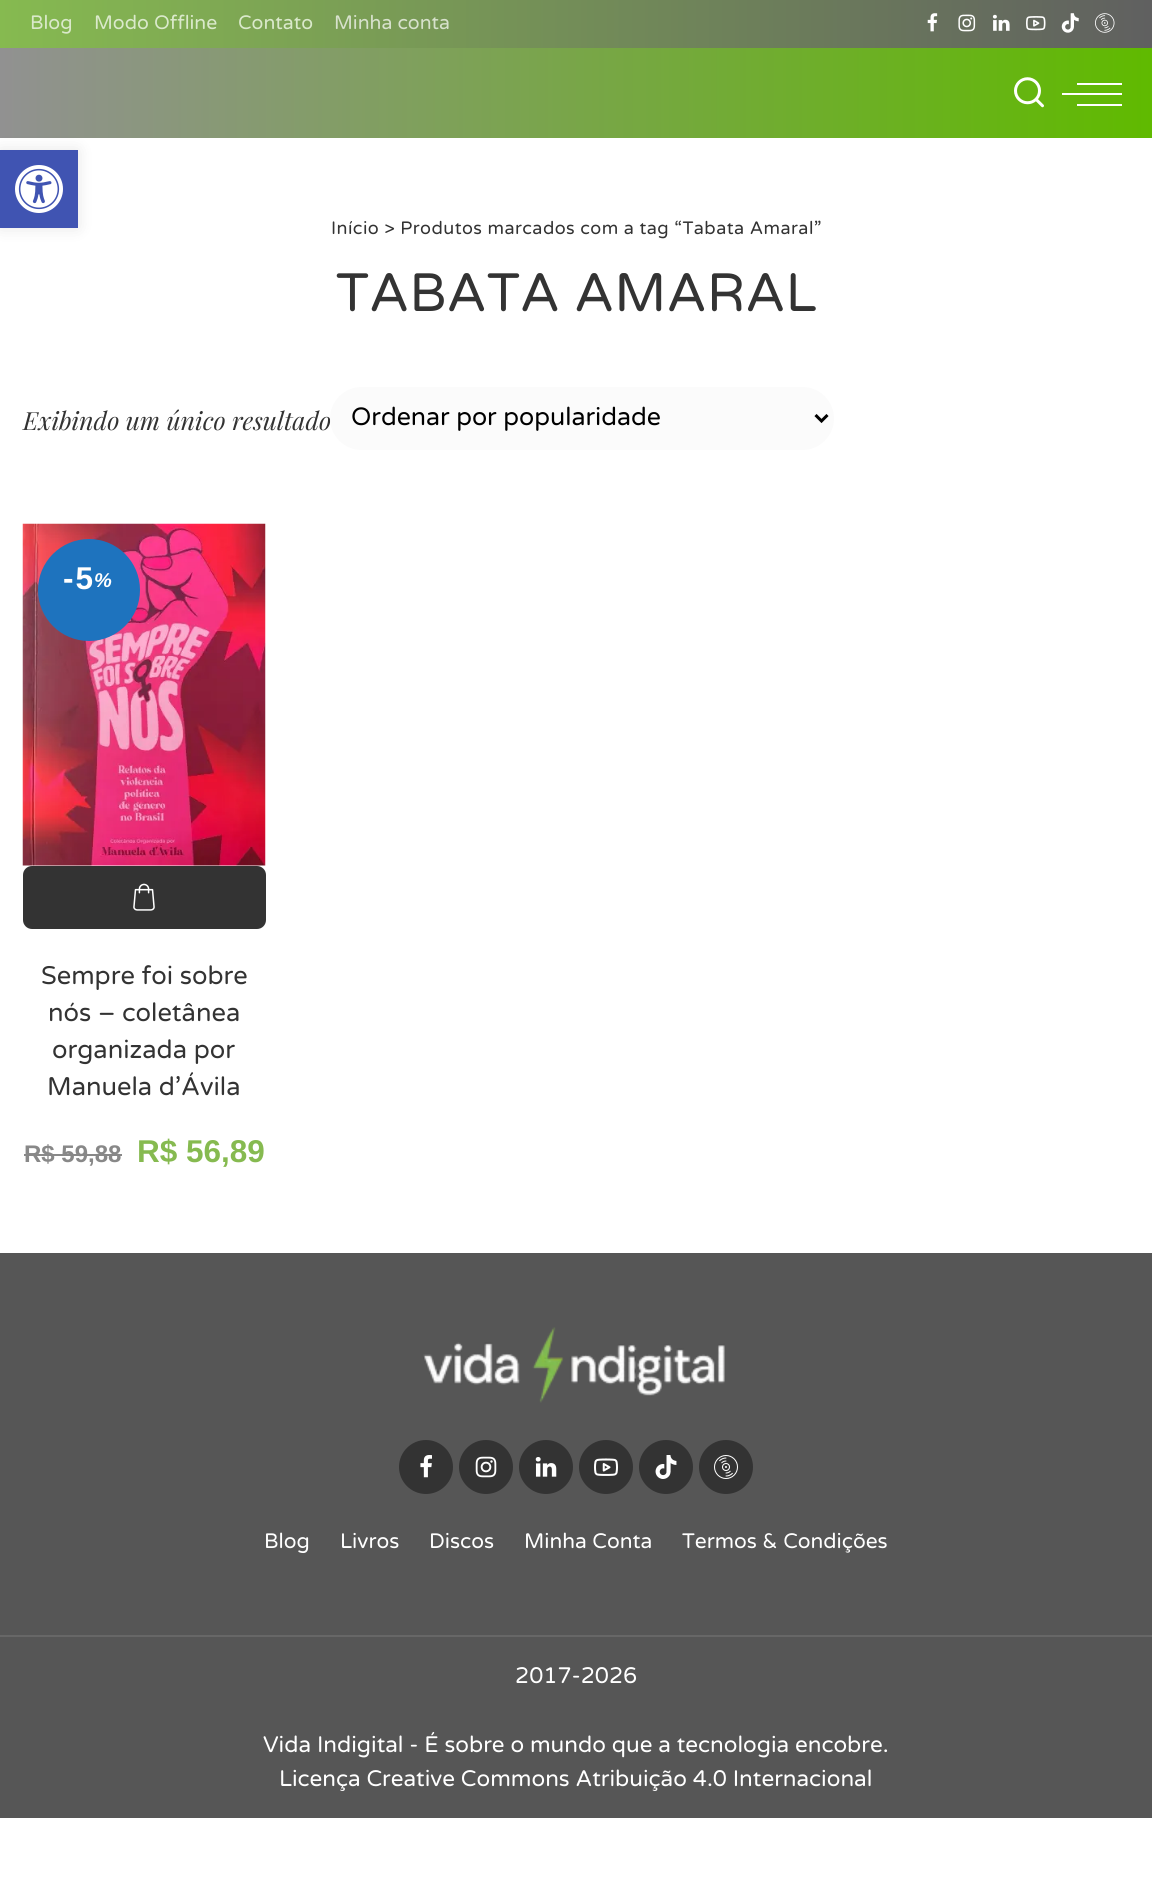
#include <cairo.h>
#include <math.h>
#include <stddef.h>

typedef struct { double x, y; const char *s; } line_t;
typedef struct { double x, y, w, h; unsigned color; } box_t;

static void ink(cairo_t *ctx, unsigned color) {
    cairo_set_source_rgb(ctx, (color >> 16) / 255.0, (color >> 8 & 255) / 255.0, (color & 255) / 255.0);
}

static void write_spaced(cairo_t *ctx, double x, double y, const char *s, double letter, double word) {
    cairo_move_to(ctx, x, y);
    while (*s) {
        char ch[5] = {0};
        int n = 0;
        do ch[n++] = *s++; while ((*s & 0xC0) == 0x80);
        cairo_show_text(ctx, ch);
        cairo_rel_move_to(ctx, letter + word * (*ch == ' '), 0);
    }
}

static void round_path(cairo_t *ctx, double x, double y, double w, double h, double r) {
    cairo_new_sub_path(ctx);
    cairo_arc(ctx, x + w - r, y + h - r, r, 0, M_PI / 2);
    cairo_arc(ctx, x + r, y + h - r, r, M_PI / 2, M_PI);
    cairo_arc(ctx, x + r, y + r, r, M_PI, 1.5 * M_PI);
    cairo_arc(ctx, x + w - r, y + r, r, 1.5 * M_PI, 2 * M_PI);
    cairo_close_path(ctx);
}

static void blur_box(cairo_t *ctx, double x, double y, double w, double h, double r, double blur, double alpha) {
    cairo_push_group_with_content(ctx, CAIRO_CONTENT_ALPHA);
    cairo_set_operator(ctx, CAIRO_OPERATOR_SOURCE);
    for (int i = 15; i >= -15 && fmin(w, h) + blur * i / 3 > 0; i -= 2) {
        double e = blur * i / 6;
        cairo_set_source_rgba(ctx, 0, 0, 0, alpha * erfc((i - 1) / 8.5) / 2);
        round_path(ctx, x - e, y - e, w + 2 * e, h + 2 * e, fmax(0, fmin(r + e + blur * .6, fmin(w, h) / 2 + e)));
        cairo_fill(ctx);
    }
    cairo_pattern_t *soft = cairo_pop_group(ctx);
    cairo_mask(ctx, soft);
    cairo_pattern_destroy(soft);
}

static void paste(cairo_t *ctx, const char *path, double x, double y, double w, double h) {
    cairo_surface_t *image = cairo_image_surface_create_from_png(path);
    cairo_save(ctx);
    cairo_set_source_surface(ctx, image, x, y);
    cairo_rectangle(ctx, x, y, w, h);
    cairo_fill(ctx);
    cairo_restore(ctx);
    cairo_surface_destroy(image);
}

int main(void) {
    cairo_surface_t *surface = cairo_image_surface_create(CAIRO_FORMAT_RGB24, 1152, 1889);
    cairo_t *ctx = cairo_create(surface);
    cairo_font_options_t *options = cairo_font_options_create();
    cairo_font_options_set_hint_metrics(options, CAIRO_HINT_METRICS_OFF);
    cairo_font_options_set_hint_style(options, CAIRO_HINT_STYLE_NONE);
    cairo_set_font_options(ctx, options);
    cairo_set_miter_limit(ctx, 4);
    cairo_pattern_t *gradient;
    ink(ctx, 0xFFFFFF);
    cairo_paint(ctx);
    gradient = cairo_pattern_create_linear(0, 24, 1152, 24);
    cairo_pattern_add_color_stop_rgba(gradient, 0, 0.525, 0.729, 0.314, 1);
    cairo_pattern_add_color_stop_rgba(gradient, 1, 0.376, 0.376, 0.376, 1);
    cairo_set_source(ctx, gradient);
    cairo_pattern_destroy(gradient);
    cairo_rectangle(ctx, 0, 0, 1152, 48);
    cairo_fill(ctx);
    cairo_select_font_face(ctx, "Varela Round", CAIRO_FONT_SLANT_NORMAL, CAIRO_FONT_WEIGHT_NORMAL);
    cairo_set_font_size(ctx, 19.5);
    ink(ctx, 0xDAE9CB);
    {
        static const line_t items[] = {
            {30, 29, "Blog"},
            {94, 29, "Modo Offline"},
            {238, 29, "Contato"},
        };
        for (size_t i = 0; i < sizeof items / sizeof *items; i++) {
            cairo_move_to(ctx, items[i].x, items[i].y);
            cairo_show_text(ctx, items[i].s);
        }
    }
    ink(ctx, 0xD7E1CC);
    cairo_move_to(ctx, 334, 29);
    cairo_show_text(ctx, "Minha conta");
    paste(ctx, "media/1.png", 927, 13, 11, 19);
    paste(ctx, "media/2.png", 958, 14, 18, 18);
    paste(ctx, "media/3.png", 992, 14, 18, 17);
    paste(ctx, "media/4.png", 1026, 16, 20, 15);
    paste(ctx, "media/5.png", 1061, 13, 18, 20);
    paste(ctx, "media/6.png", 1095, 13, 20, 20);
    gradient = cairo_pattern_create_linear(0, 93, 1152, 93);
    cairo_pattern_add_color_stop_rgba(gradient, 0, 0.569, 0.569, 0.569, 1);
    cairo_pattern_add_color_stop_rgba(gradient, 1, 0.376, 0.729, 0, 1);
    cairo_set_source(ctx, gradient);
    cairo_pattern_destroy(gradient);
    cairo_rectangle(ctx, 0, 48, 1152, 90);
    cairo_fill(ctx);
    paste(ctx, "media/7.png", 1014, 77, 30, 31);
    {
        static const box_t items[] = {
            {1062, 93, 60, 2, 0xFFFFFF},
            {1077, 83, 45, 2, 0xFFFFFF},
            {1077, 104, 45, 2, 0xFFFFFF},
        };
        for (size_t i = 0; i < sizeof items / sizeof *items; i++) {
            ink(ctx, items[i].color);
            cairo_rectangle(ctx, items[i].x, items[i].y, items[i].w, items[i].h);
            cairo_fill(ctx);
        }
    }
    cairo_set_font_size(ctx, 18);
    ink(ctx, 0x333333);
    write_spaced(ctx, 331, 234, "Início > Produtos marcados com a tag “Tabata Amaral”", 0.43, 0);
    cairo_set_font_size(ctx, 54);
    cairo_move_to(ctx, 336, 311);
    cairo_show_text(ctx, "TABATA AMARAL");
    cairo_select_font_face(ctx, "Playfair Display", CAIRO_FONT_SLANT_ITALIC, CAIRO_FONT_WEIGHT_NORMAL);
    cairo_set_font_size(ctx, 25);
    cairo_move_to(ctx, 23, 430);
    cairo_show_text(ctx, "Exibindo um único resultado");
    ink(ctx, 0xFBFBFB);
    round_path(ctx, 330, 387, 504, 63, 31.5);
    cairo_fill(ctx);
    cairo_new_path(ctx);
    cairo_move_to(ctx, 815.5, 415);
    cairo_line_to(ctx, 821.5, 421);
    cairo_line_to(ctx, 827.5, 415);
    ink(ctx, 0x000000);
    cairo_set_line_width(ctx, 3);
    cairo_stroke(ctx);
    cairo_select_font_face(ctx, "Varela Round", CAIRO_FONT_SLANT_NORMAL, CAIRO_FONT_WEIGHT_NORMAL);
    cairo_move_to(ctx, 351, 425);
    cairo_show_text(ctx, "Ordenar por popularidade");
    paste(ctx, "media/8.png", 22, 523, 244, 343);
    ink(ctx, 0x1E73BE);
    cairo_arc(ctx, 89, 590, 51, 0, 2 * M_PI);
    cairo_fill(ctx);
    cairo_select_font_face(ctx, "Liberation Sans", CAIRO_FONT_SLANT_NORMAL, CAIRO_FONT_WEIGHT_BOLD);
    cairo_set_font_size(ctx, 31.5);
    ink(ctx, 0xFFFFFF);
    write_spaced(ctx, 63, 589, "-5", 2, 0);
    cairo_select_font_face(ctx, "Liberation Sans", CAIRO_FONT_SLANT_ITALIC, CAIRO_FONT_WEIGHT_BOLD);
    cairo_set_font_size(ctx, 20);
    write_spaced(ctx, 94, 587, "%", 2, 0);
    ink(ctx, 0x333333);
    round_path(ctx, 23, 866, 243, 63, 9);
    cairo_fill(ctx);
    paste(ctx, "media/9.png", 133, 883, 22, 28);
    cairo_select_font_face(ctx, "Varela Round", CAIRO_FONT_SLANT_NORMAL, CAIRO_FONT_WEIGHT_NORMAL);
    cairo_set_font_size(ctx, 25.5);
    {
        static const line_t items[] = {
            {41, 984, "Sempre foi sobre"},
            {48, 1021, "nós – coletânea"},
            {52, 1058, "organizada por"},
            {47, 1095, "Manuela d’Ávila"},
        };
        for (size_t i = 0; i < sizeof items / sizeof *items; i++) {
            cairo_move_to(ctx, items[i].x, items[i].y);
            cairo_show_text(ctx, items[i].s);
        }
    }
    cairo_select_font_face(ctx, "Liberation Sans", CAIRO_FONT_SLANT_NORMAL, CAIRO_FONT_WEIGHT_BOLD);
    cairo_set_font_size(ctx, 24);
    ink(ctx, 0x888888);
    cairo_move_to(ctx, 24, 1162);
    cairo_show_text(ctx, "R$ 59,88");
    cairo_rectangle(ctx, 24, 1154, 98, 2);
    cairo_fill(ctx);
    cairo_set_font_size(ctx, 31.5);
    ink(ctx, 0x86BA50);
    cairo_move_to(ctx, 137, 1162);
    cairo_show_text(ctx, "R$ 56,89");
    ink(ctx, 0x565656);
    cairo_rectangle(ctx, 0, 1253, 1152, 565);
    cairo_fill(ctx);
    paste(ctx, "media/10.png", 423, 1327, 302, 76);
    ink(ctx, 0x333333);
    cairo_arc(ctx, 426, 1467, 27, 0, 2 * M_PI);
    cairo_fill(ctx);
    paste(ctx, "media/11.png", 420, 1455, 12, 23);
    cairo_arc(ctx, 486, 1467, 27, 0, 2 * M_PI);
    cairo_fill(ctx);
    paste(ctx, "media/12.png", 475, 1456, 22, 22);
    cairo_arc(ctx, 546, 1467, 27, 0, 2 * M_PI);
    cairo_fill(ctx);
    paste(ctx, "media/13.png", 535, 1457, 22, 20);
    cairo_arc(ctx, 606, 1467, 27, 0, 2 * M_PI);
    cairo_fill(ctx);
    paste(ctx, "media/14.png", 594, 1458, 24, 18);
    cairo_arc(ctx, 666, 1467, 27, 0, 2 * M_PI);
    cairo_fill(ctx);
    paste(ctx, "media/15.png", 655, 1455, 22, 24);
    cairo_arc(ctx, 726, 1467, 27, 0, 2 * M_PI);
    cairo_fill(ctx);
    paste(ctx, "media/16.png", 714, 1455, 24, 24);
    cairo_select_font_face(ctx, "Varela Round", CAIRO_FONT_SLANT_NORMAL, CAIRO_FONT_WEIGHT_NORMAL);
    cairo_set_font_size(ctx, 21);
    ink(ctx, 0xFFFFFF);
    {
        static const line_t items[] = {
            {264, 1548, "Blog"},
            {340, 1548, "Livros"},
            {429, 1548, "Discos"},
            {524, 1548, "Minha Conta"},
            {682, 1548, "Termos & Condições"},
        };
        for (size_t i = 0; i < sizeof items / sizeof *items; i++) {
            cairo_move_to(ctx, items[i].x, items[i].y);
            cairo_show_text(ctx, items[i].s);
        }
    }
    ink(ctx, 0x676767);
    cairo_rectangle(ctx, 0, 1635, 1152, 2);
    cairo_fill(ctx);
    cairo_set_font_size(ctx, 22.5);
    ink(ctx, 0xFFFFFF);
    {
        static const line_t items[] = {
            {515, 1683, "2017-2026"},
            {263, 1752, "Vida Indigital - É sobre o mundo que a tecnologia encobre."},
            {279, 1786, "Licença Creative Commons Atribuição 4.0 Internacional"},
        };
        for (size_t i = 0; i < sizeof items / sizeof *items; i++) {
            cairo_move_to(ctx, items[i].x, items[i].y);
            cairo_show_text(ctx, items[i].s);
        }
    }
    ink(ctx, 0x000000);
    blur_box(ctx, 0, 150, 78, 78, 0, 7.5, 0.1);
    ink(ctx, 0x4054B2);
    cairo_rectangle(ctx, 0, 150, 78, 78);
    cairo_fill(ctx);
    paste(ctx, "media/17.png", 15, 165, 48, 48);
    cairo_surface_write_to_png(surface, "image.png");
    cairo_font_options_destroy(options);
    cairo_destroy(ctx);
    cairo_surface_destroy(surface);
    return 0;
}
